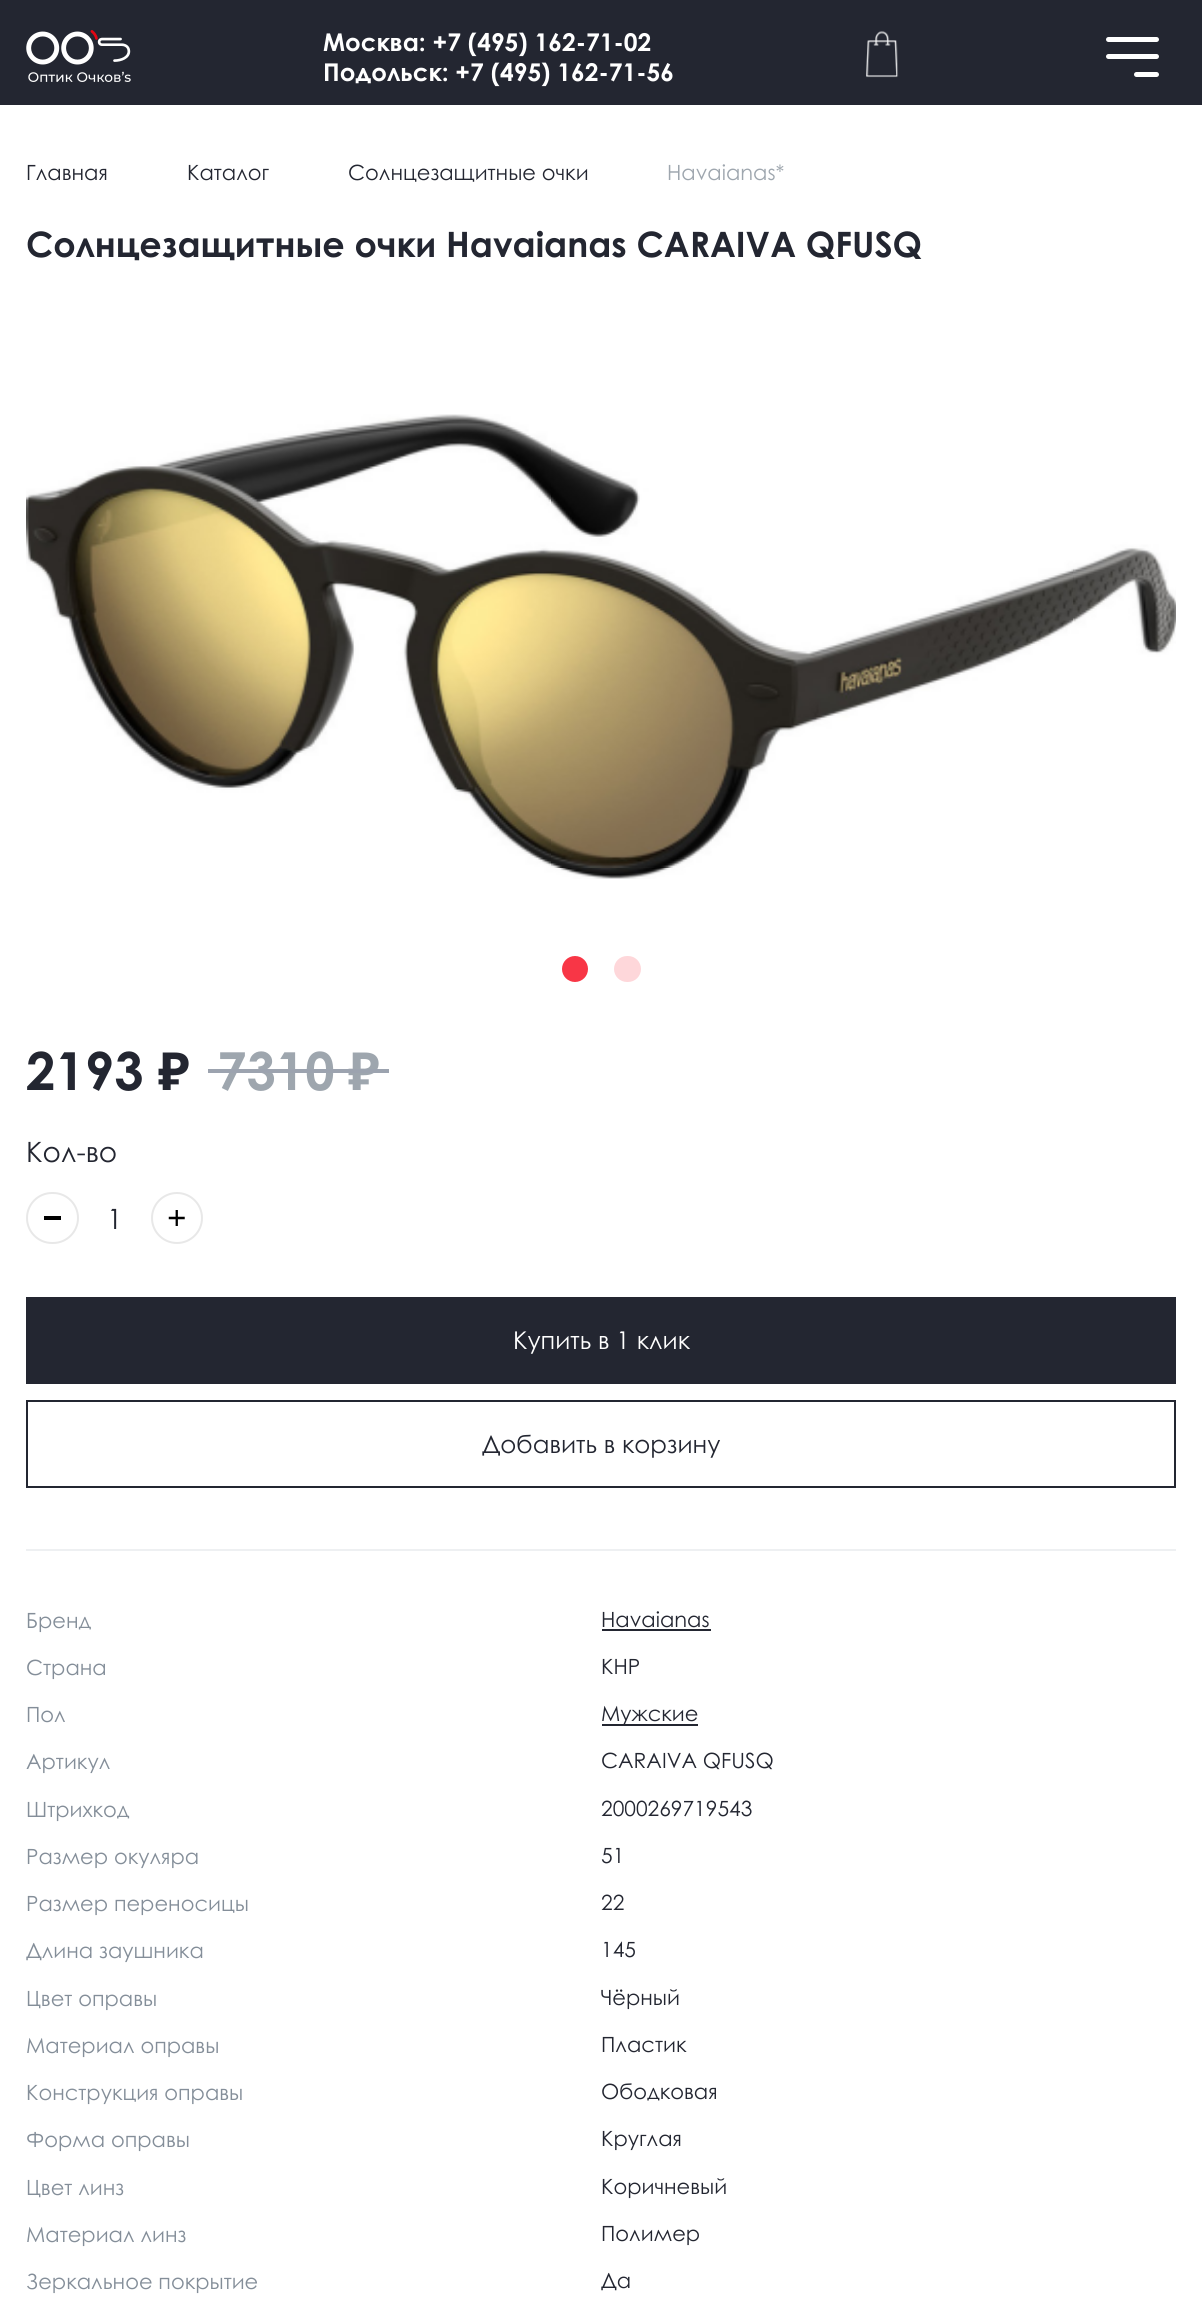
#include <cairo.h>
#include <math.h>
#include <stddef.h>

typedef struct { double x, y; const char *s; } line_t;

static void ink(cairo_t *ctx, unsigned color) {
    cairo_set_source_rgb(ctx, (color >> 16) / 255.0, (color >> 8 & 255) / 255.0, (color & 255) / 255.0);
}

static void round_path(cairo_t *ctx, double x, double y, double w, double h, double r) {
    cairo_new_sub_path(ctx);
    cairo_arc(ctx, x + w - r, y + h - r, r, 0, M_PI / 2);
    cairo_arc(ctx, x + r, y + h - r, r, M_PI / 2, M_PI);
    cairo_arc(ctx, x + r, y + r, r, M_PI, 1.5 * M_PI);
    cairo_arc(ctx, x + w - r, y + r, r, 1.5 * M_PI, 2 * M_PI);
    cairo_close_path(ctx);
}

static void paste(cairo_t *ctx, const char *path, double x, double y, double w, double h) {
    cairo_surface_t *image = cairo_image_surface_create_from_png(path);
    cairo_save(ctx);
    cairo_set_source_surface(ctx, image, x, y);
    cairo_rectangle(ctx, x, y, w, h);
    cairo_fill(ctx);
    cairo_restore(ctx);
    cairo_surface_destroy(image);
}

int main(void) {
    cairo_surface_t *surface = cairo_image_surface_create(CAIRO_FORMAT_RGB24, 1202, 2317);
    cairo_t *ctx = cairo_create(surface);
    cairo_font_options_t *options = cairo_font_options_create();
    cairo_font_options_set_hint_metrics(options, CAIRO_HINT_METRICS_OFF);
    cairo_font_options_set_hint_style(options, CAIRO_HINT_STYLE_NONE);
    cairo_set_font_options(ctx, options);
    cairo_set_miter_limit(ctx, 4);
    ink(ctx, 0xFFFFFF);
    cairo_paint(ctx);
    ink(ctx, 0x232631);
    cairo_rectangle(ctx, 0, 0, 1202, 105);
    cairo_fill(ctx);
    paste(ctx, "media/1.png", 26, 30, 105, 52);
    cairo_select_font_face(ctx, "Century Gothic", CAIRO_FONT_SLANT_NORMAL, CAIRO_FONT_WEIGHT_BOLD);
    cairo_set_font_size(ctx, 24.5);
    ink(ctx, 0xFFFFFF);
    cairo_move_to(ctx, 323, 51);
    cairo_show_text(ctx, "Москва: +7 (495) 162-71-02");
    cairo_move_to(ctx, 323, 81);
    cairo_show_text(ctx, "Подольск: +7 (495) 162-71-56");
    paste(ctx, "media/2.png", 866, 31, 33, 47);
    round_path(ctx, 1106, 37, 53, 5, 2.5);
    cairo_fill(ctx);
    round_path(ctx, 1106, 54, 53, 5, 2.5);
    cairo_fill(ctx);
    round_path(ctx, 1134, 72, 25, 5, 2.5);
    cairo_fill(ctx);
    cairo_select_font_face(ctx, "Century Gothic", CAIRO_FONT_SLANT_NORMAL, CAIRO_FONT_WEIGHT_NORMAL);
    cairo_set_font_size(ctx, 21);
    ink(ctx, 0x232631);
    {
        static const line_t items[] = {
            {26, 180, "Главная"},
            {187, 180, "Каталог"},
            {348, 180, "Солнцезащитные очки"},
        };
        for (size_t i = 0; i < sizeof items / sizeof *items; i++) {
            cairo_move_to(ctx, items[i].x, items[i].y);
            cairo_show_text(ctx, items[i].s);
        }
    }
    ink(ctx, 0x9EA6AE);
    cairo_move_to(ctx, 667, 180);
    cairo_show_text(ctx, "Havaianas*");
    cairo_select_font_face(ctx, "Century Gothic", CAIRO_FONT_SLANT_NORMAL, CAIRO_FONT_WEIGHT_BOLD);
    cairo_set_font_size(ctx, 35);
    ink(ctx, 0x232631);
    cairo_move_to(ctx, 26, 257);
    cairo_show_text(ctx, "Солнцезащитные очки Havaianas CARAIVA QFUSQ");
    paste(ctx, "media/3.png", 26, 414, 1150, 465);
    ink(ctx, 0xF83646);
    cairo_arc(ctx, 575, 969, 13, 0, 2 * M_PI);
    cairo_fill(ctx);
    ink(ctx, 0xFED7DA);
    round_path(ctx, 614, 956, 27, 26, 13);
    cairo_fill(ctx);
    cairo_set_font_size(ctx, 52.5);
    ink(ctx, 0x232631);
    cairo_move_to(ctx, 26, 1090);
    cairo_show_text(ctx, "2193");
    cairo_select_font_face(ctx, "Noto Sans", CAIRO_FONT_SLANT_NORMAL, CAIRO_FONT_WEIGHT_BOLD);
    cairo_move_to(ctx, 158, 1090);
    cairo_show_text(ctx, "₽");
    cairo_select_font_face(ctx, "Century Gothic", CAIRO_FONT_SLANT_NORMAL, CAIRO_FONT_WEIGHT_BOLD);
    ink(ctx, 0x9EA6AE);
    cairo_move_to(ctx, 217, 1090);
    cairo_show_text(ctx, "7310");
    cairo_select_font_face(ctx, "Noto Sans", CAIRO_FONT_SLANT_NORMAL, CAIRO_FONT_WEIGHT_BOLD);
    cairo_move_to(ctx, 348, 1090);
    cairo_show_text(ctx, "₽");
    ink(ctx, 0x9CA3AF);
    cairo_rectangle(ctx, 208, 1069, 181, 4);
    cairo_fill(ctx);
    cairo_select_font_face(ctx, "Century Gothic", CAIRO_FONT_SLANT_NORMAL, CAIRO_FONT_WEIGHT_NORMAL);
    cairo_set_font_size(ctx, 28);
    ink(ctx, 0x232631);
    cairo_move_to(ctx, 26, 1162);
    cairo_show_text(ctx, "Кол-во");
    round_path(ctx, 27, 1193, 51, 50, 25);
    ink(ctx, 0xE8E8E8);
    cairo_stroke(ctx);
    ink(ctx, 0x000000);
    cairo_rectangle(ctx, 44, 1216, 17, 4);
    cairo_fill(ctx);
    ink(ctx, 0x232631);
    cairo_move_to(ctx, 107, 1229);
    cairo_show_text(ctx, "1");
    cairo_new_path(ctx);
    cairo_arc(ctx, 177, 1218, 25, 0, 2 * M_PI);
    ink(ctx, 0xE8E8E8);
    cairo_stroke(ctx);
    paste(ctx, "media/4.png", 168, 1210, 17, 16);
    ink(ctx, 0x232631);
    cairo_rectangle(ctx, 26, 1297, 1150, 87);
    cairo_fill(ctx);
    cairo_set_font_size(ctx, 24.5);
    ink(ctx, 0xFFFFFF);
    cairo_move_to(ctx, 513, 1349);
    cairo_show_text(ctx, "Купить в 1 клик");
    cairo_rectangle(ctx, 27, 1401, 1148, 86);
    ink(ctx, 0x232631);
    cairo_stroke(ctx);
    cairo_move_to(ctx, 482, 1453);
    cairo_show_text(ctx, "Добавить в корзину");
    ink(ctx, 0xEEF0F2);
    cairo_rectangle(ctx, 26, 1549, 1150, 2);
    cairo_fill(ctx);
    cairo_set_font_size(ctx, 21);
    ink(ctx, 0x848E99);
    cairo_move_to(ctx, 26, 1628);
    cairo_show_text(ctx, "Бренд");
    ink(ctx, 0x232631);
    cairo_move_to(ctx, 601, 1627);
    cairo_show_text(ctx, "Havaianas");
    cairo_rectangle(ctx, 602, 1629, 109, 2);
    cairo_fill(ctx);
    ink(ctx, 0x848E99);
    cairo_move_to(ctx, 26, 1675);
    cairo_show_text(ctx, "Страна");
    ink(ctx, 0x232631);
    cairo_move_to(ctx, 601, 1674);
    cairo_show_text(ctx, "КНР");
    ink(ctx, 0x848E99);
    cairo_move_to(ctx, 26, 1722);
    cairo_show_text(ctx, "Пол");
    ink(ctx, 0x232631);
    cairo_rectangle(ctx, 602, 1724, 96, 2);
    cairo_fill(ctx);
    cairo_move_to(ctx, 601, 1721);
    cairo_show_text(ctx, "Мужские");
    ink(ctx, 0x848E99);
    cairo_move_to(ctx, 26, 1769);
    cairo_show_text(ctx, "Артикул");
    ink(ctx, 0x232631);
    cairo_move_to(ctx, 601, 1768);
    cairo_show_text(ctx, "CARAIVA QFUSQ");
    ink(ctx, 0x848E99);
    cairo_move_to(ctx, 26, 1817);
    cairo_show_text(ctx, "Штрихкод");
    ink(ctx, 0x232631);
    cairo_move_to(ctx, 601, 1816);
    cairo_show_text(ctx, "2000269719543");
    ink(ctx, 0x848E99);
    cairo_move_to(ctx, 26, 1864);
    cairo_show_text(ctx, "Размер окуляра");
    ink(ctx, 0x232631);
    cairo_move_to(ctx, 601, 1863);
    cairo_show_text(ctx, "51");
    ink(ctx, 0x848E99);
    cairo_move_to(ctx, 26, 1911);
    cairo_show_text(ctx, "Размер переносицы");
    ink(ctx, 0x232631);
    cairo_move_to(ctx, 601, 1910);
    cairo_show_text(ctx, "22");
    ink(ctx, 0x848E99);
    cairo_move_to(ctx, 26, 1958);
    cairo_show_text(ctx, "Длина заушника");
    ink(ctx, 0x232631);
    cairo_move_to(ctx, 601, 1957);
    cairo_show_text(ctx, "145");
    ink(ctx, 0x848E99);
    cairo_move_to(ctx, 26, 2006);
    cairo_show_text(ctx, "Цвет оправы");
    ink(ctx, 0x232631);
    cairo_move_to(ctx, 601, 2005);
    cairo_show_text(ctx, "Чёрный");
    ink(ctx, 0x848E99);
    cairo_move_to(ctx, 26, 2053);
    cairo_show_text(ctx, "Материал оправы");
    ink(ctx, 0x232631);
    cairo_move_to(ctx, 601, 2052);
    cairo_show_text(ctx, "Пластик");
    ink(ctx, 0x848E99);
    cairo_move_to(ctx, 26, 2100);
    cairo_show_text(ctx, "Конструкция оправы");
    ink(ctx, 0x232631);
    cairo_move_to(ctx, 601, 2099);
    cairo_show_text(ctx, "Ободковая");
    ink(ctx, 0x848E99);
    cairo_move_to(ctx, 26, 2147);
    cairo_show_text(ctx, "Форма оправы");
    ink(ctx, 0x232631);
    cairo_move_to(ctx, 601, 2146);
    cairo_show_text(ctx, "Круглая");
    ink(ctx, 0x848E99);
    cairo_move_to(ctx, 26, 2195);
    cairo_show_text(ctx, "Цвет линз");
    ink(ctx, 0x232631);
    cairo_move_to(ctx, 601, 2194);
    cairo_show_text(ctx, "Коричневый");
    ink(ctx, 0x848E99);
    cairo_move_to(ctx, 26, 2242);
    cairo_show_text(ctx, "Материал линз");
    ink(ctx, 0x232631);
    cairo_move_to(ctx, 601, 2241);
    cairo_show_text(ctx, "Полимер");
    ink(ctx, 0x848E99);
    cairo_move_to(ctx, 26, 2289);
    cairo_show_text(ctx, "Зеркальное покрытие");
    ink(ctx, 0x232631);
    cairo_move_to(ctx, 601, 2288);
    cairo_show_text(ctx, "Да");
    cairo_surface_write_to_png(surface, "image.png");
    cairo_font_options_destroy(options);
    cairo_destroy(ctx);
    cairo_surface_destroy(surface);
    return 0;
}
